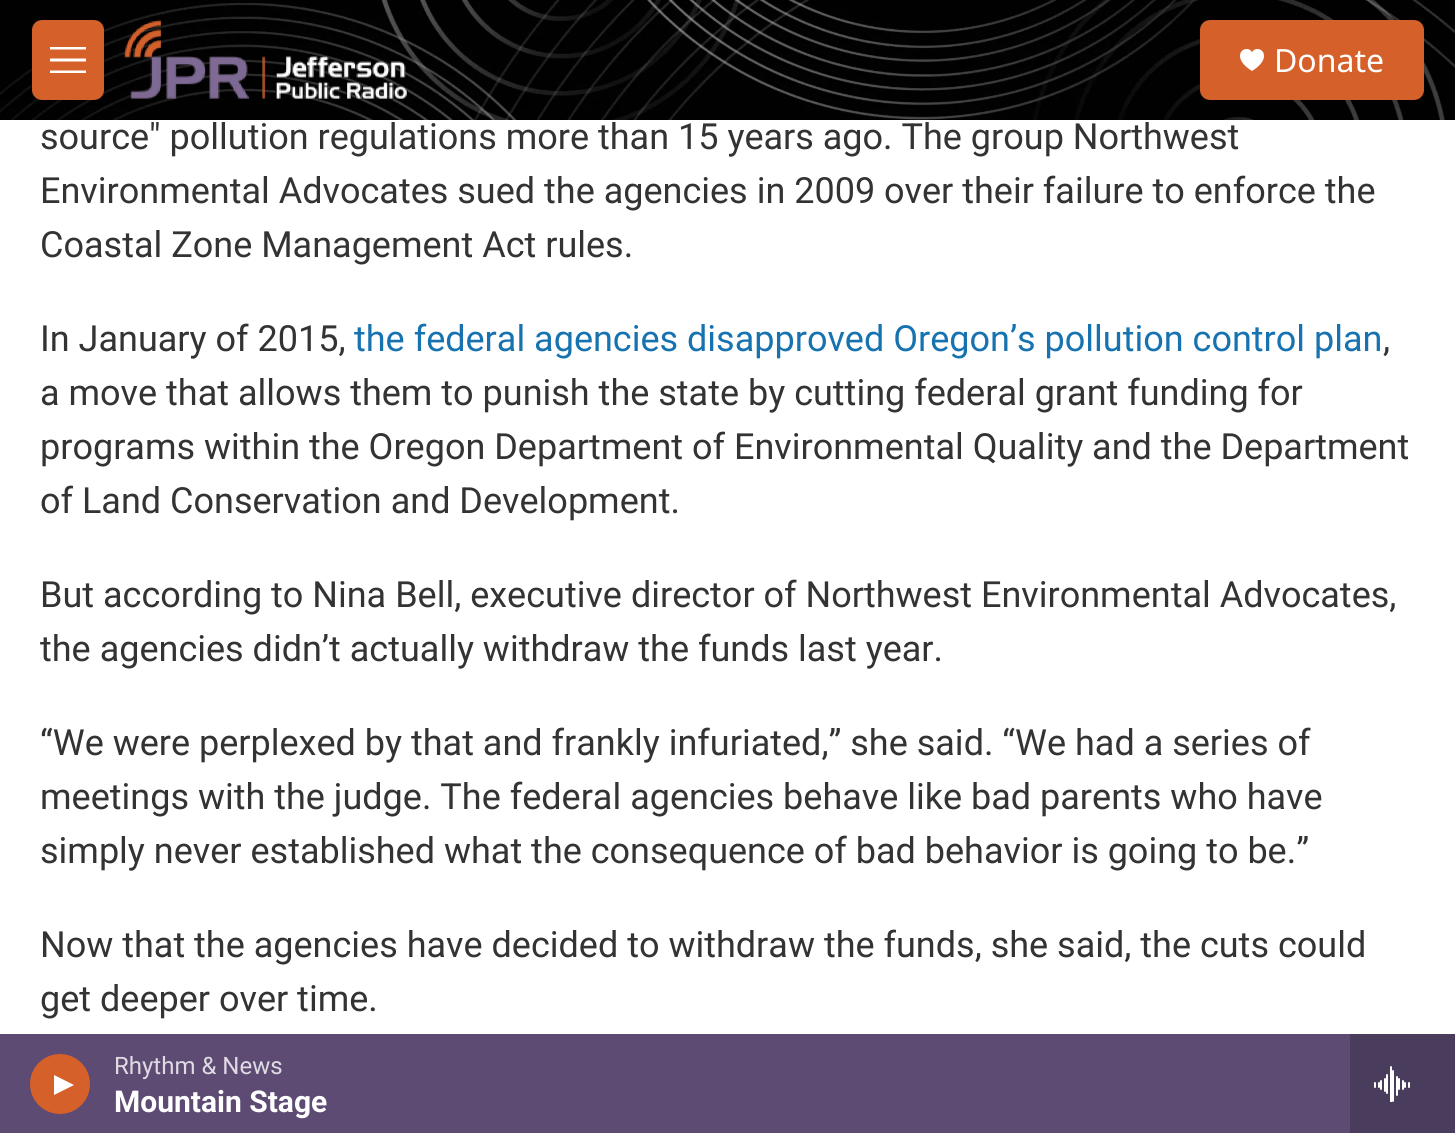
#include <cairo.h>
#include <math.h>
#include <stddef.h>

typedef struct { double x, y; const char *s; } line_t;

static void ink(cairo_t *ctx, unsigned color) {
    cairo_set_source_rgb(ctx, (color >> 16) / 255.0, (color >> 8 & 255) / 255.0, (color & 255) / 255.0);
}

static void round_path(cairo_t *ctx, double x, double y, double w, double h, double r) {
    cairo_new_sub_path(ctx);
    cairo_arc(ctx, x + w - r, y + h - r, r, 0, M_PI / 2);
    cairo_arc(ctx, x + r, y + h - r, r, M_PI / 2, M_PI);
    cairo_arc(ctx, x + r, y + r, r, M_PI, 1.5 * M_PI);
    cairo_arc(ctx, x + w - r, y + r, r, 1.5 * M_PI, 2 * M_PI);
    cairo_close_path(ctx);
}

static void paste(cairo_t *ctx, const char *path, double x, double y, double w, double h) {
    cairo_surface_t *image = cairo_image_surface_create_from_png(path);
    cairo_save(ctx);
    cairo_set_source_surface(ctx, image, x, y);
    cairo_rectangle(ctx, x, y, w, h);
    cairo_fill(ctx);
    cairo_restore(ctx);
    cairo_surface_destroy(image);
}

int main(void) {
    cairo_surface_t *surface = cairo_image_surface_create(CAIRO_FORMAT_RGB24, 1455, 1133);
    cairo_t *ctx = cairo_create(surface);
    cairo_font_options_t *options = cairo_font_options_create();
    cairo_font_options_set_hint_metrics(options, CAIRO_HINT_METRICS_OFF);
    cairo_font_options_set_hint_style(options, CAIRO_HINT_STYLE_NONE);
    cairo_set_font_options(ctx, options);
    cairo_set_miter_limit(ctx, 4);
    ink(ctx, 0xFFFFFF);
    cairo_paint(ctx);
    paste(ctx, "media/1.png", 0, 0, 1455, 120);
    ink(ctx, 0xD5602A);
    round_path(ctx, 32, 20, 72, 80, 10);
    cairo_fill(ctx);
    ink(ctx, 0xFFFFFF);
    cairo_set_fill_rule(ctx, CAIRO_FILL_RULE_EVEN_ODD);
    cairo_new_path(ctx);
    cairo_move_to(ctx, 50, 61.5);
    cairo_line_to(ctx, 50, 58.5);
    cairo_line_to(ctx, 86, 58.5);
    cairo_line_to(ctx, 86, 61.5);
    cairo_close_path(ctx);
    cairo_move_to(ctx, 50, 49.5);
    cairo_line_to(ctx, 50, 47);
    cairo_line_to(ctx, 86, 47);
    cairo_line_to(ctx, 86, 49.5);
    cairo_close_path(ctx);
    cairo_move_to(ctx, 50, 73);
    cairo_line_to(ctx, 50, 70.5);
    cairo_line_to(ctx, 86, 70.5);
    cairo_line_to(ctx, 86, 73);
    cairo_close_path(ctx);
    cairo_fill(ctx);
    paste(ctx, "media/2.png", 124, 20, 284, 80);
    ink(ctx, 0xD5602A);
    round_path(ctx, 1200, 20, 224, 80, 10);
    cairo_fill(ctx);
    paste(ctx, "media/3.png", 1240, 49, 24, 22);
    cairo_select_font_face(ctx, "Noto Sans", CAIRO_FONT_SLANT_NORMAL, CAIRO_FONT_WEIGHT_NORMAL);
    cairo_set_font_size(ctx, 32);
    ink(ctx, 0xFFFFFF);
    cairo_move_to(ctx, 1274, 72);
    cairo_show_text(ctx, "Donate");
    ink(ctx, 0x5D4B73);
    cairo_rectangle(ctx, 0, 1034, 1350, 99);
    cairo_fill(ctx);
    ink(ctx, 0xD5602A);
    cairo_arc(ctx, 60, 1084, 30, 0, 2 * M_PI);
    cairo_fill(ctx);
    ink(ctx, 0xFFFFFF);
    cairo_set_fill_rule(ctx, CAIRO_FILL_RULE_WINDING);
    cairo_new_path(ctx);
    cairo_move_to(ctx, 54, 1075);
    cairo_line_to(ctx, 74, 1085);
    cairo_line_to(ctx, 54, 1095);
    cairo_close_path(ctx);
    cairo_fill(ctx);
    cairo_select_font_face(ctx, "Roboto", CAIRO_FONT_SLANT_NORMAL, CAIRO_FONT_WEIGHT_NORMAL);
    cairo_set_font_size(ctx, 24);
    ink(ctx, 0xDFDBE3);
    cairo_move_to(ctx, 114, 1074);
    cairo_show_text(ctx, "Rhythm & News");
    cairo_select_font_face(ctx, "Roboto", CAIRO_FONT_SLANT_NORMAL, CAIRO_FONT_WEIGHT_BOLD);
    cairo_set_font_size(ctx, 30);
    ink(ctx, 0xFFFFFF);
    cairo_move_to(ctx, 114, 1112);
    cairo_show_text(ctx, "Mountain Stage");
    ink(ctx, 0x4A3C5C);
    cairo_rectangle(ctx, 1350, 1034, 105, 99);
    cairo_fill(ctx);
    paste(ctx, "media/4.png", 1374, 1066, 36, 36);
    cairo_select_font_face(ctx, "Roboto", CAIRO_FONT_SLANT_NORMAL, CAIRO_FONT_WEIGHT_NORMAL);
    cairo_set_font_size(ctx, 36);
    ink(ctx, 0x333333);
    {
        static const line_t items[] = {
            {40, 149, "source\" pollution regulations more than 15 years ago. The group Northwest"},
            {40, 203, "Environmental Advocates sued the agencies in 2009 over their failure to enforce the"},
            {40, 257, "Coastal Zone Management Act rules."},
            {40, 351, "In January of 2015,"},
        };
        for (size_t i = 0; i < sizeof items / sizeof *items; i++) {
            cairo_move_to(ctx, items[i].x, items[i].y);
            cairo_show_text(ctx, items[i].s);
        }
    }
    ink(ctx, 0x1772B0);
    cairo_move_to(ctx, 354, 351);
    cairo_show_text(ctx, "the federal agencies disapproved Oregon’s pollution control plan");
    ink(ctx, 0x333333);
    {
        static const line_t items[] = {
            {1383, 351, ","},
            {40, 405, "a move that allows them to punish the state by cutting federal grant funding for"},
            {40, 459, "programs within the Oregon Department of Environmental Quality and the Department"},
            {40, 513, "of Land Conservation and Development."},
            {40, 607, "But according to Nina Bell, executive director of Northwest Environmental Advocates,"},
            {40, 661, "the agencies didn’t actually withdraw the funds last year."},
            {40, 755, "“We were perplexed by that and frankly infuriated,” she said. “We had a series of"},
            {40, 809, "meetings with the judge. The federal agencies behave like bad parents who have"},
            {40, 863, "simply never established what the consequence of bad behavior is going to be.”"},
            {40, 957, "Now that the agencies have decided to withdraw the funds, she said, the cuts could"},
            {40, 1011, "get deeper over time."},
        };
        for (size_t i = 0; i < sizeof items / sizeof *items; i++) {
            cairo_move_to(ctx, items[i].x, items[i].y);
            cairo_show_text(ctx, items[i].s);
        }
    }
    cairo_surface_write_to_png(surface, "image.png");
    cairo_font_options_destroy(options);
    cairo_destroy(ctx);
    cairo_surface_destroy(surface);
    return 0;
}
